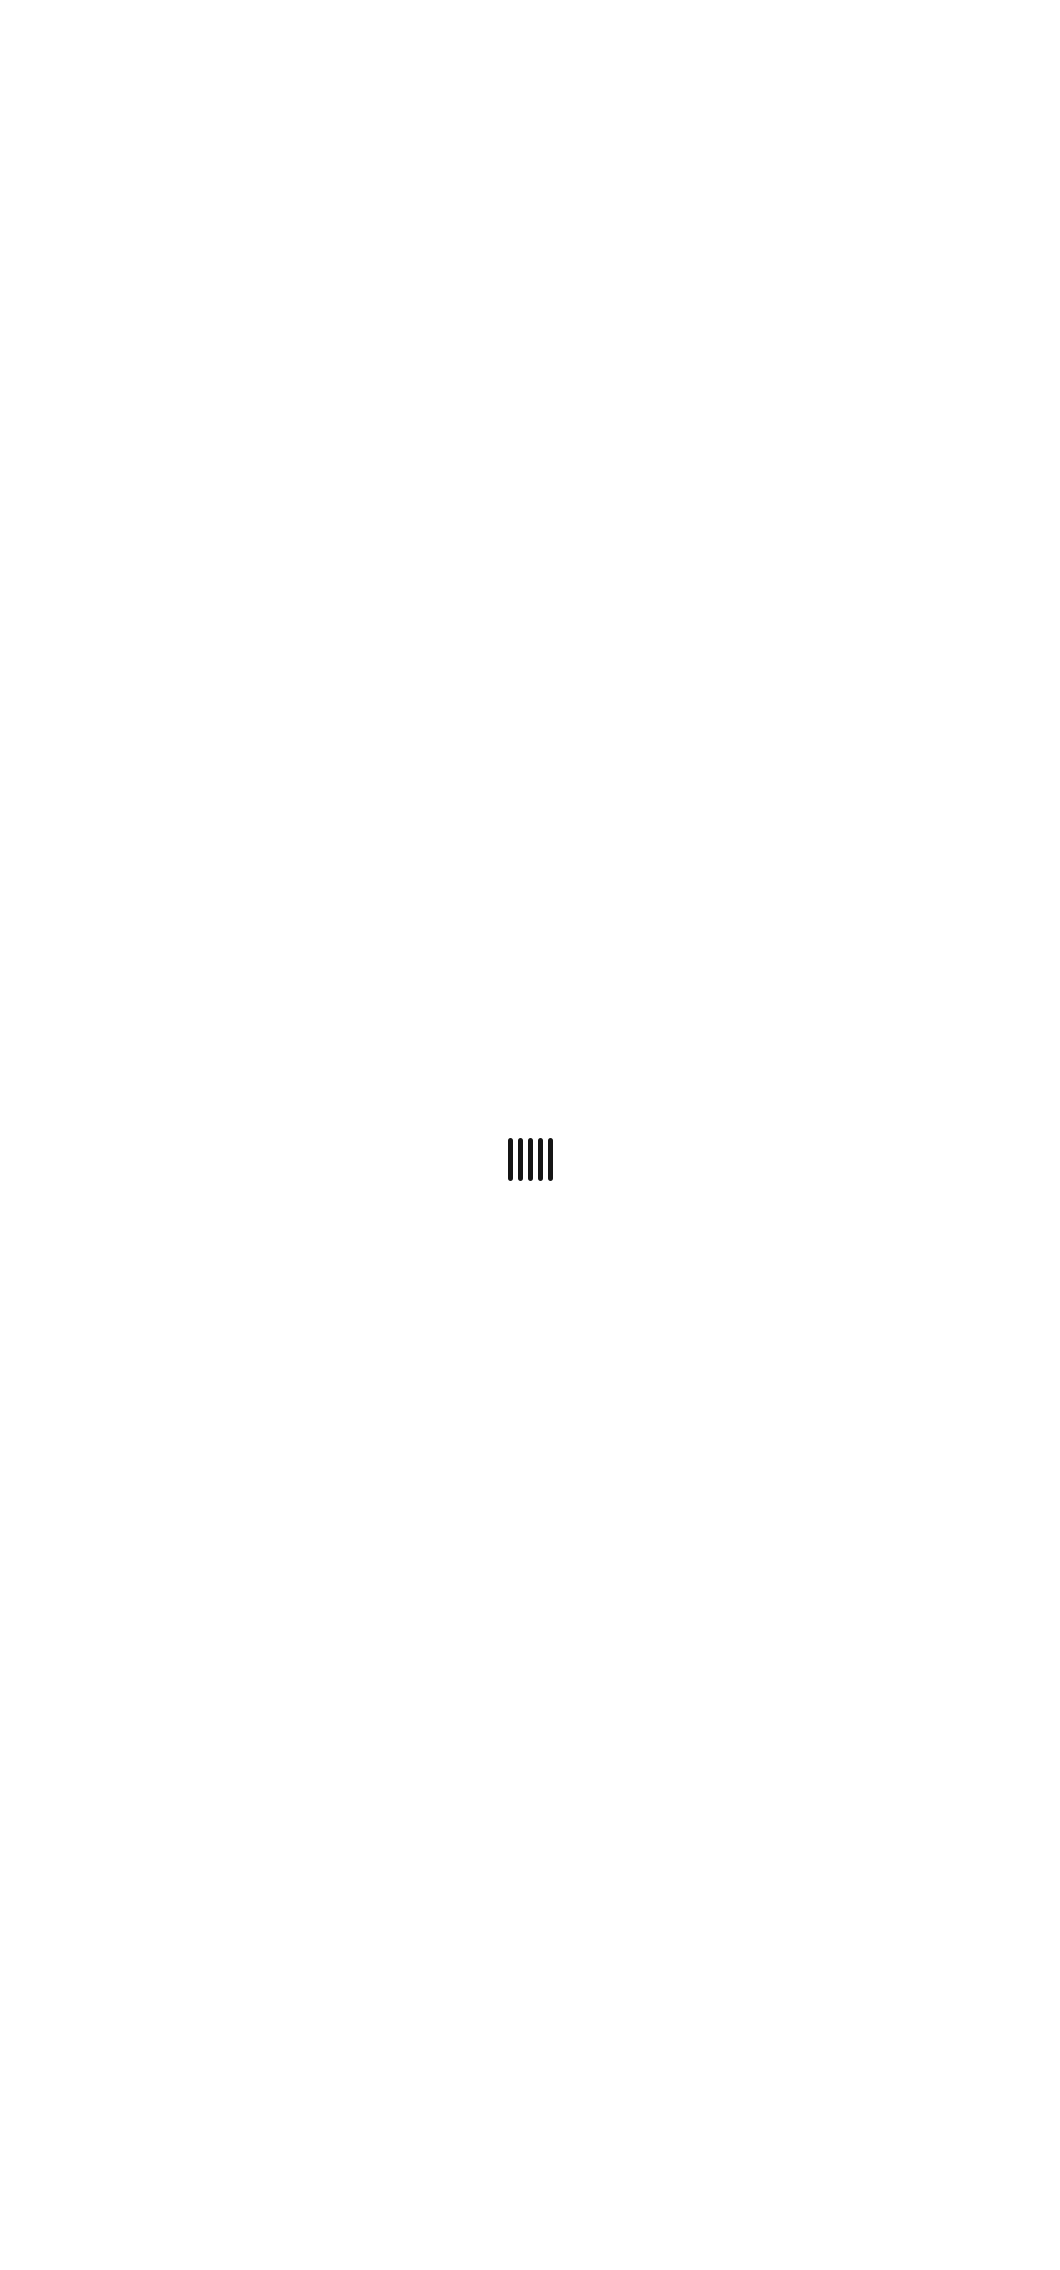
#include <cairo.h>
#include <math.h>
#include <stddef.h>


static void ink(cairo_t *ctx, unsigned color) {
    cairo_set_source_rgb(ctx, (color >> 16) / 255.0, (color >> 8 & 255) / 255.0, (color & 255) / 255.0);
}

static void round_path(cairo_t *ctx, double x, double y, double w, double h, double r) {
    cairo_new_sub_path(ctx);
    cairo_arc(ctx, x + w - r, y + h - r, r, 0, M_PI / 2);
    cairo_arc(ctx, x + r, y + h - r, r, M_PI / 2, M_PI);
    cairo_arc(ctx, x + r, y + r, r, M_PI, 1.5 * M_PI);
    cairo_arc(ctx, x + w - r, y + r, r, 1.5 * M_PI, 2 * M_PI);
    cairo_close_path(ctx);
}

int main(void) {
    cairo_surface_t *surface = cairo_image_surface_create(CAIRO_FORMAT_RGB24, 1060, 2270);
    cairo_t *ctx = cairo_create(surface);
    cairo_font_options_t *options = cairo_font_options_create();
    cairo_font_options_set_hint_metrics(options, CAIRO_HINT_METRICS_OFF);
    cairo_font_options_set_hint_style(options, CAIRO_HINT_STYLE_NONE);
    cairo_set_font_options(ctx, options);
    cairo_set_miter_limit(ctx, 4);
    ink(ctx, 0xFFFFFF);
    cairo_paint(ctx);
    ink(ctx, 0x151515);
    round_path(ctx, 508, 1138, 5, 43, 2.5);
    cairo_fill(ctx);
    round_path(ctx, 518, 1138, 5, 43, 2.5);
    cairo_fill(ctx);
    round_path(ctx, 528, 1138, 5, 43, 2.5);
    cairo_fill(ctx);
    round_path(ctx, 538, 1138, 5, 43, 2.5);
    cairo_fill(ctx);
    round_path(ctx, 548, 1138, 5, 43, 2.5);
    cairo_fill(ctx);
    cairo_surface_write_to_png(surface, "image.png");
    cairo_font_options_destroy(options);
    cairo_destroy(ctx);
    cairo_surface_destroy(surface);
    return 0;
}
